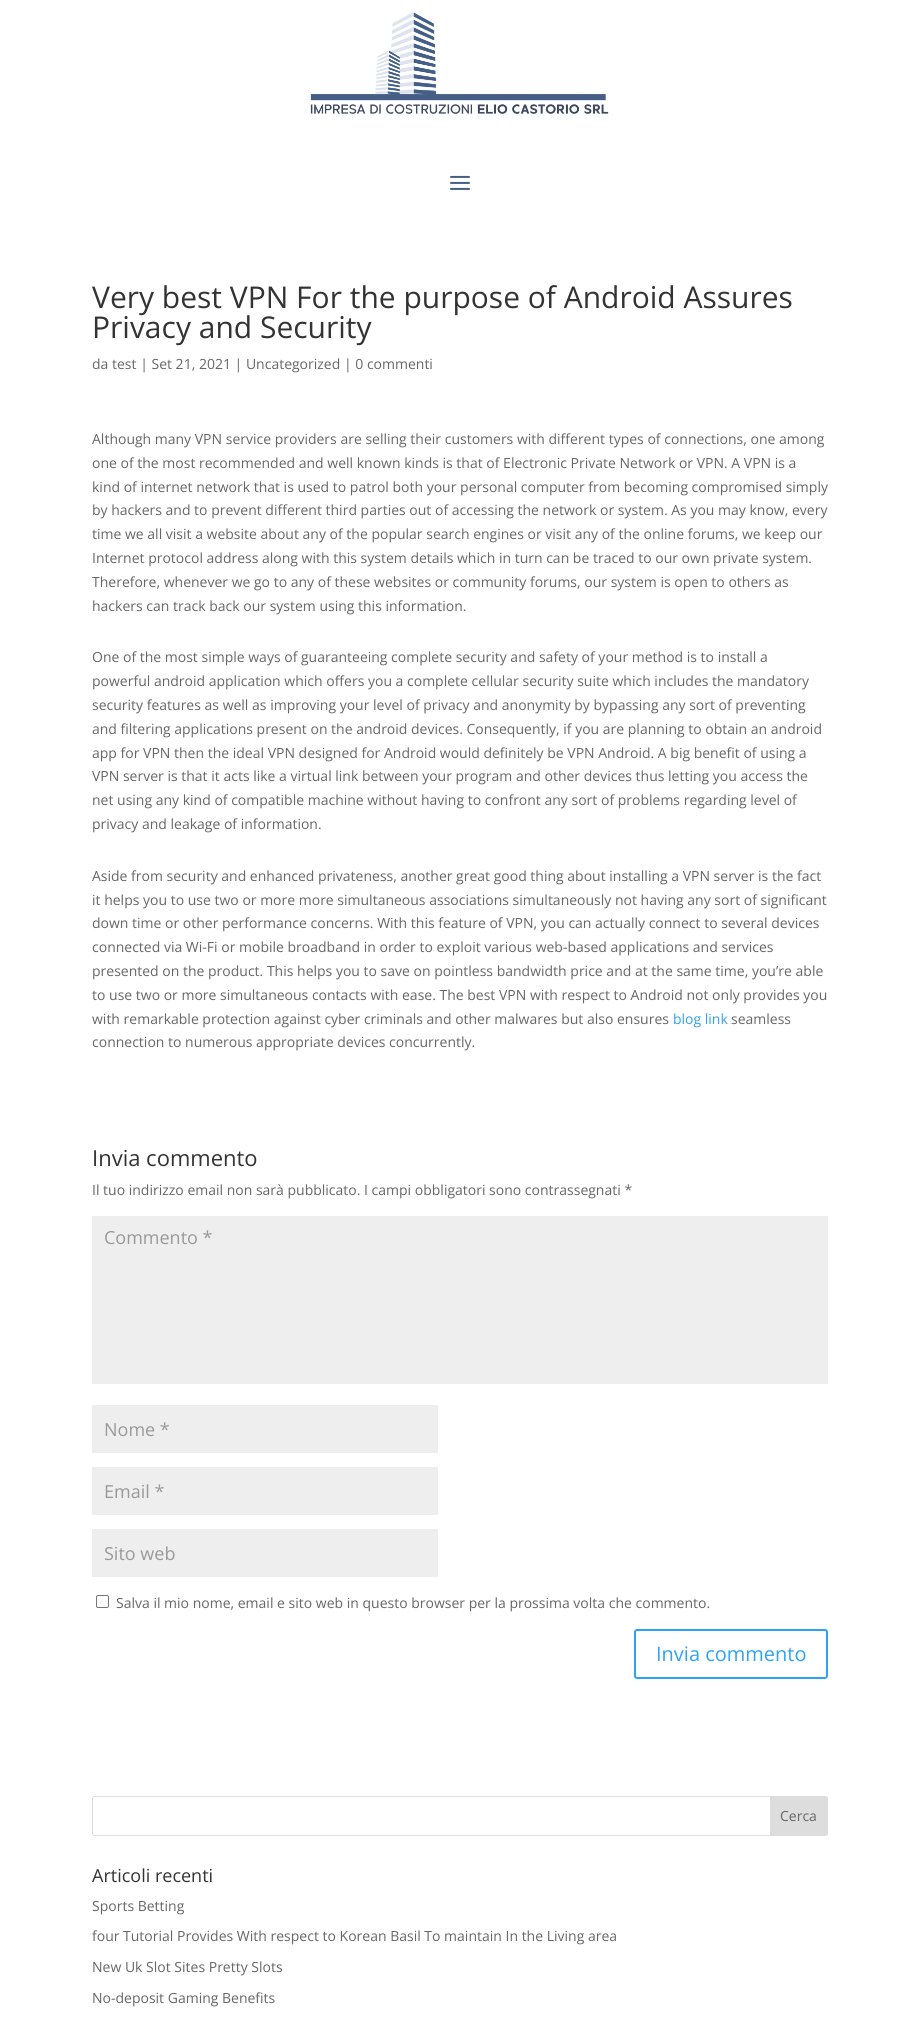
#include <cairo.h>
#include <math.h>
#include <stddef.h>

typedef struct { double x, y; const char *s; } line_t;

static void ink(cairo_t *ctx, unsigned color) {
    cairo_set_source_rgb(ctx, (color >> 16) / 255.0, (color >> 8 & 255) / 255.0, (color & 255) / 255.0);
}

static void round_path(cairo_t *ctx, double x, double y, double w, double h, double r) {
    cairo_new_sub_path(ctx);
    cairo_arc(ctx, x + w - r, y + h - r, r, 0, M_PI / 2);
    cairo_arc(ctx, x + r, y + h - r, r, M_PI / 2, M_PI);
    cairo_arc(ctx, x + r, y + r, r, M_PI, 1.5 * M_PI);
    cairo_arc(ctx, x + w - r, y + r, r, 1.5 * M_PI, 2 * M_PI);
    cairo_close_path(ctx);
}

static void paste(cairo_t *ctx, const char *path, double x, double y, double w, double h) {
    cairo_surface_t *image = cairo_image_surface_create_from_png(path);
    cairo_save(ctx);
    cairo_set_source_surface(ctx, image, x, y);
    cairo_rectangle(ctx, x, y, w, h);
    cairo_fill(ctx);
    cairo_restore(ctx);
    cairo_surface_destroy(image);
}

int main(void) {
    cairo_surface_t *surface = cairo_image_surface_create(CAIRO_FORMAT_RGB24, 920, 2022);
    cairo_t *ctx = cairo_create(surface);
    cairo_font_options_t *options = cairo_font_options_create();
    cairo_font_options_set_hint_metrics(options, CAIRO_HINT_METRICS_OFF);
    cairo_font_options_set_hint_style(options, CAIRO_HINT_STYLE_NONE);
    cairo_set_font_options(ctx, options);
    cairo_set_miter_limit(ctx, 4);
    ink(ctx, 0xFFFFFF);
    cairo_paint(ctx);
    paste(ctx, "media/1.png", 310, 12, 299, 102);
    paste(ctx, "media/2.png", 450, 175, 20, 15);
    cairo_select_font_face(ctx, "Open Sans", CAIRO_FONT_SLANT_NORMAL, CAIRO_FONT_WEIGHT_NORMAL);
    cairo_set_font_size(ctx, 30);
    ink(ctx, 0x333333);
    cairo_move_to(ctx, 92, 308);
    cairo_show_text(ctx, "Very best VPN For the purpose of Android Assures");
    cairo_move_to(ctx, 92, 338);
    cairo_show_text(ctx, "Privacy and Security");
    cairo_set_font_size(ctx, 14);
    ink(ctx, 0x666666);
    {
        static const line_t items[] = {
            {92, 369, "da test | Set 21, 2021 | Uncategorized | 0 commenti"},
            {92, 444, "Although many VPN service providers are selling their customers with different types of connections, one among"},
            {92, 468, "one of the most recommended and well known kinds is that of Electronic Private Network or VPN. A VPN is a"},
            {92, 492, "kind of internet network that is used to patrol both your personal computer from becoming compromised simply"},
            {92, 515, "by hackers and to prevent different third parties out of accessing the network or system. As you may know, every"},
            {92, 539, "time we all visit a website about any of the popular search engines or visit any of the online forums, we keep our"},
            {92, 563, "Internet protocol address along with this system details which in turn can be traced to our own private system."},
            {92, 587, "Therefore, whenever we go to any of these websites or community forums, our system is open to others as"},
            {92, 611, "hackers can track back our system using this information."},
            {92, 662, "One of the most simple ways of guaranteeing complete security and safety of your method is to install a"},
            {92, 686, "powerful android application which offers you a complete cellular security suite which includes the mandatory"},
            {92, 710, "security features as well as improving your level of privacy and anonymity by bypassing any sort of preventing"},
            {92, 734, "and filtering applications present on the android devices. Consequently, if you are planning to obtain an android"},
            {92, 758, "app for VPN then the ideal VPN designed for Android would definitely be VPN Android. A big benefit of using a"},
            {92, 781, "VPN server is that it acts like a virtual link between your program and other devices thus letting you access the"},
            {92, 805, "net using any kind of compatible machine without having to confront any sort of problems regarding level of"},
            {92, 829, "privacy and leakage of information."},
            {92, 881, "Aside from security and enhanced privateness, another great good thing about installing a VPN server is the fact"},
            {92, 905, "it helps you to use two or more more simultaneous associations simultaneously not having any sort of significant"},
            {92, 928, "down time or other performance concerns. With this feature of VPN, you can actually connect to several devices"},
            {92, 952, "connected via Wi-Fi or mobile broadband in order to exploit various web-based applications and services"},
            {92, 976, "presented on the product. This helps you to save on pointless bandwidth price and at the same time, you’re able"},
            {92, 1000, "to use two or more simultaneous contacts with ease. The best VPN with respect to Android not only provides you"},
            {92, 1024, "with remarkable protection against cyber criminals and other malwares but also ensures"},
        };
        for (size_t i = 0; i < sizeof items / sizeof *items; i++) {
            cairo_move_to(ctx, items[i].x, items[i].y);
            cairo_show_text(ctx, items[i].s);
        }
    }
    ink(ctx, 0x2EA3F2);
    cairo_move_to(ctx, 673, 1024);
    cairo_show_text(ctx, "blog link");
    ink(ctx, 0x666666);
    cairo_move_to(ctx, 731, 1024);
    cairo_show_text(ctx, "seamless");
    cairo_move_to(ctx, 92, 1047);
    cairo_show_text(ctx, "connection to numerous appropriate devices concurrently.");
    cairo_set_font_size(ctx, 22);
    ink(ctx, 0x333333);
    cairo_move_to(ctx, 92, 1166);
    cairo_show_text(ctx, "Invia commento");
    cairo_set_font_size(ctx, 14);
    ink(ctx, 0x666666);
    cairo_move_to(ctx, 92, 1195);
    cairo_show_text(ctx, "Il tuo indirizzo email non sarà pubblicato. I campi obbligatori sono contrassegnati *");
    ink(ctx, 0xEEEEEE);
    cairo_rectangle(ctx, 92, 1216, 736, 168);
    cairo_fill(ctx);
    cairo_set_font_size(ctx, 18);
    ink(ctx, 0x999999);
    cairo_move_to(ctx, 104, 1244);
    cairo_show_text(ctx, "Commento *");
    ink(ctx, 0xEEEEEE);
    cairo_rectangle(ctx, 92, 1405, 346, 48);
    cairo_fill(ctx);
    ink(ctx, 0x999999);
    cairo_move_to(ctx, 104, 1436);
    cairo_show_text(ctx, "Nome *");
    ink(ctx, 0xEEEEEE);
    cairo_rectangle(ctx, 92, 1467, 346, 48);
    cairo_fill(ctx);
    ink(ctx, 0x999999);
    cairo_move_to(ctx, 104, 1498);
    cairo_show_text(ctx, "Email *");
    ink(ctx, 0xEEEEEE);
    cairo_rectangle(ctx, 92, 1529, 346, 48);
    cairo_fill(ctx);
    ink(ctx, 0x999999);
    cairo_move_to(ctx, 104, 1560);
    cairo_show_text(ctx, "Sito web");
    round_path(ctx, 96.5, 1595.5, 12, 12, 1.5);
    ink(ctx, 0x767676);
    cairo_set_line_width(ctx, 1);
    cairo_stroke(ctx);
    cairo_set_font_size(ctx, 14);
    ink(ctx, 0x666666);
    cairo_move_to(ctx, 116, 1608);
    cairo_show_text(ctx, "Salva il mio nome, email e sito web in questo browser per la prossima volta che commento.");
    round_path(ctx, 635, 1630, 192, 48, 2);
    ink(ctx, 0x2EA3F2);
    cairo_set_line_width(ctx, 2);
    cairo_stroke(ctx);
    cairo_set_font_size(ctx, 20);
    cairo_move_to(ctx, 656, 1661);
    cairo_show_text(ctx, "Invia commento");
    round_path(ctx, 92.5, 1796.5, 735, 39, 2.5);
    ink(ctx, 0xDDDDDD);
    cairo_set_line_width(ctx, 1);
    cairo_stroke(ctx);
    cairo_new_path(ctx);
    cairo_move_to(ctx, 770.5, 1796.5);
    cairo_line_to(ctx, 825, 1796.5);
    cairo_curve_to(ctx, 826.5, 1796.5, 827.5, 1797.5, 827.5, 1799);
    cairo_line_to(ctx, 827.5, 1833);
    cairo_curve_to(ctx, 827.5, 1834.5, 826.5, 1835.5, 825, 1835.5);
    cairo_line_to(ctx, 770.5, 1835.5);
    cairo_close_path(ctx);
    cairo_fill_preserve(ctx);
    cairo_stroke(ctx);
    cairo_set_font_size(ctx, 14);
    ink(ctx, 0x666666);
    cairo_move_to(ctx, 780, 1821);
    cairo_show_text(ctx, "Cerca");
    cairo_set_font_size(ctx, 18);
    ink(ctx, 0x333333);
    cairo_move_to(ctx, 92, 1882);
    cairo_show_text(ctx, "Articoli recenti");
    cairo_set_font_size(ctx, 14);
    ink(ctx, 0x666666);
    {
        static const line_t items[] = {
            {92, 1911, "Sports Betting"},
            {92, 1941, "four Tutorial Provides With respect to Korean Basil To maintain In the Living area"},
            {92, 1972, "New Uk Slot Sites Pretty Slots"},
            {92, 2003, "No-deposit Gaming Benefits"},
        };
        for (size_t i = 0; i < sizeof items / sizeof *items; i++) {
            cairo_move_to(ctx, items[i].x, items[i].y);
            cairo_show_text(ctx, items[i].s);
        }
    }
    cairo_surface_write_to_png(surface, "image.png");
    cairo_font_options_destroy(options);
    cairo_destroy(ctx);
    cairo_surface_destroy(surface);
    return 0;
}
